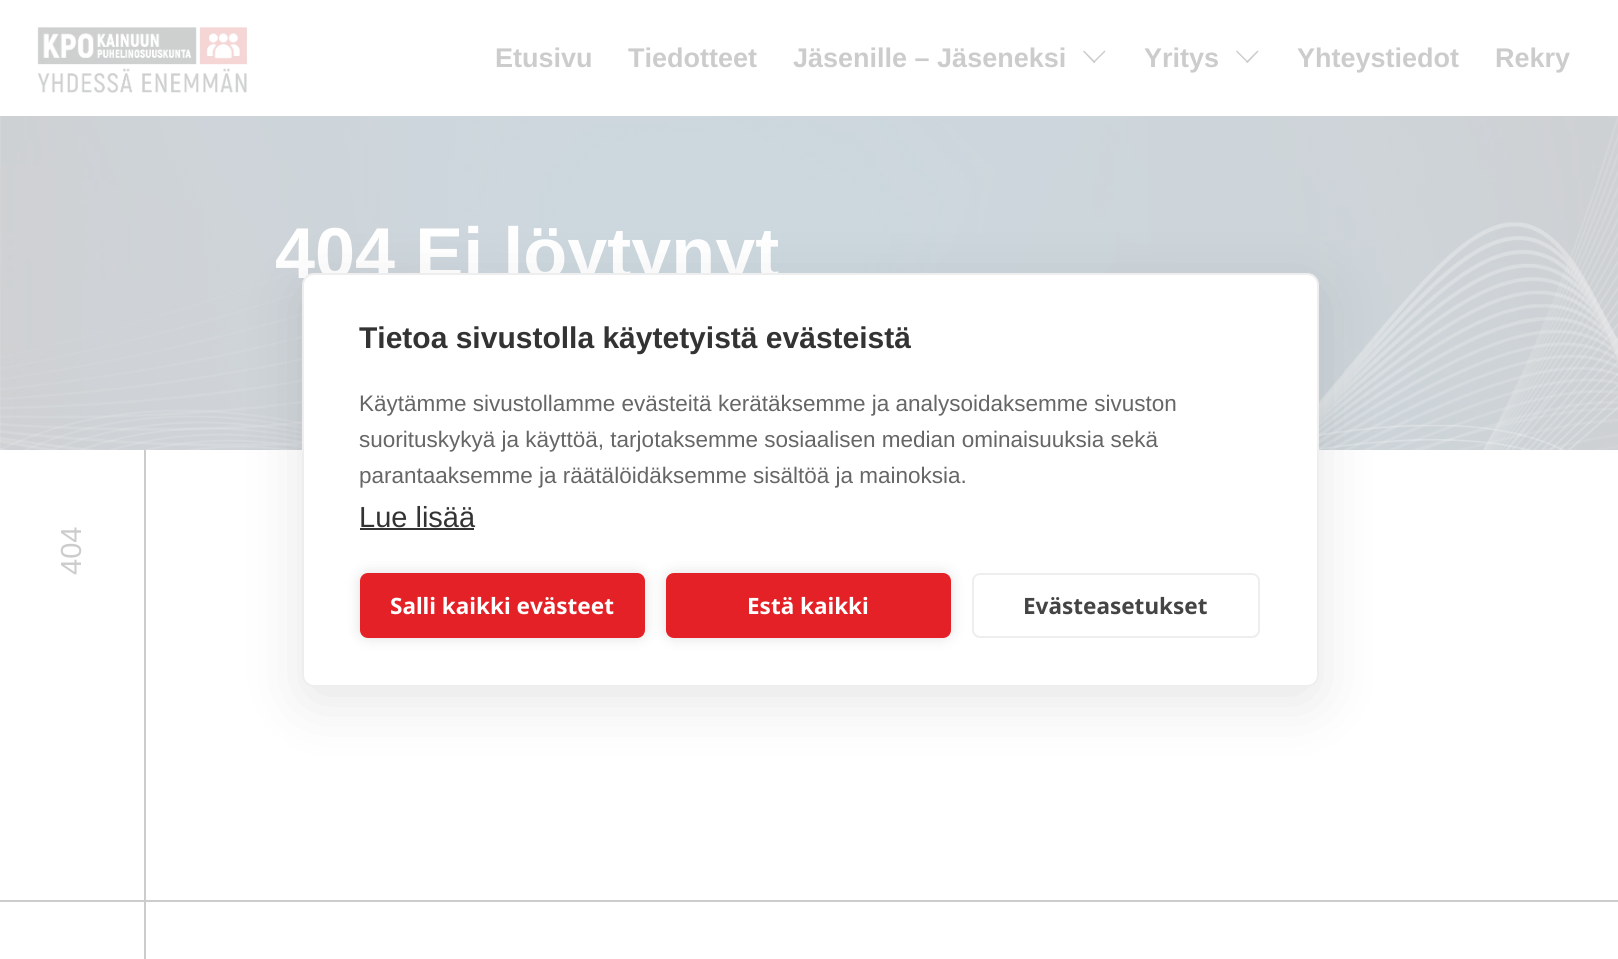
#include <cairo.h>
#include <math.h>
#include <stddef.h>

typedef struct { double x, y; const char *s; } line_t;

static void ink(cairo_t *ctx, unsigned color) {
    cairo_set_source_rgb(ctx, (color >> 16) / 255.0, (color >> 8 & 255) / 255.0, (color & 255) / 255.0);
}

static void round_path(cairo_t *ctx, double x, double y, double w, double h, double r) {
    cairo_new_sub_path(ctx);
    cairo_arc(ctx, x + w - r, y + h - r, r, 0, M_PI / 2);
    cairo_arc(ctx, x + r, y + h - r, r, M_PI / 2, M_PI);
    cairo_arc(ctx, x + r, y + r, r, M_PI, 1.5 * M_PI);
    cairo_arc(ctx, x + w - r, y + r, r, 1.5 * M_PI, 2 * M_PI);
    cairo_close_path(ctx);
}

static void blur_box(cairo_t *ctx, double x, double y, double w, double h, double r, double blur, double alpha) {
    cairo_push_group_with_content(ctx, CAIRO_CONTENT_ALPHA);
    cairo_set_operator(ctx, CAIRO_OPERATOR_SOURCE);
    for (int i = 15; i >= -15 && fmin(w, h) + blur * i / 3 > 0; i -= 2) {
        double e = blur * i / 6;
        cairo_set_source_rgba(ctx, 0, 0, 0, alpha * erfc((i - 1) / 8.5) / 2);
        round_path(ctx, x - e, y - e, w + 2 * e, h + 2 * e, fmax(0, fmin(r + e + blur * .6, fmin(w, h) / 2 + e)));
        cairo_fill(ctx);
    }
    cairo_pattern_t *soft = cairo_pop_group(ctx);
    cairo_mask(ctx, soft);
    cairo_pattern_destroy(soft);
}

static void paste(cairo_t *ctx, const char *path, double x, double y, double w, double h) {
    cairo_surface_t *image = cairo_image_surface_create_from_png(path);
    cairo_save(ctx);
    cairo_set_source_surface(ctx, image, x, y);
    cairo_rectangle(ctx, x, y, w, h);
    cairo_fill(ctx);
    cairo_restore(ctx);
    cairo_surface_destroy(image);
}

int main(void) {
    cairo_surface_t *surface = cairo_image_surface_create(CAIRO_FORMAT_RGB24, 1618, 959);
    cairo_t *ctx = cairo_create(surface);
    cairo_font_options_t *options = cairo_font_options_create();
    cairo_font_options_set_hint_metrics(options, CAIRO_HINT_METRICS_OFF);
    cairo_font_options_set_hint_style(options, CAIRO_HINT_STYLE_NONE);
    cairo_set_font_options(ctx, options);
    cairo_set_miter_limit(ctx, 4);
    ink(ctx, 0xFFFFFF);
    cairo_paint(ctx);
    paste(ctx, "media/1.png", 37, 26, 211, 67);
    cairo_select_font_face(ctx, "Liberation Sans", CAIRO_FONT_SLANT_NORMAL, CAIRO_FONT_WEIGHT_BOLD);
    cairo_set_font_size(ctx, 27);
    ink(ctx, 0xCCCCCC);
    {
        static const line_t items[] = {
            {495, 67, "Etusivu"},
            {628, 67, "Tiedotteet"},
            {793, 67, "Jäsenille – Jäseneksi"},
        };
        for (size_t i = 0; i < sizeof items / sizeof *items; i++) {
            cairo_move_to(ctx, items[i].x, items[i].y);
            cairo_show_text(ctx, items[i].s);
        }
    }
    cairo_new_path(ctx);
    cairo_move_to(ctx, 1093, 62);
    cairo_line_to(ctx, 1104.5, 50.5);
    cairo_line_to(ctx, 1105.5, 51.5);
    cairo_line_to(ctx, 1094, 63);
    cairo_close_path(ctx);
    cairo_fill(ctx);
    cairo_new_path(ctx);
    cairo_move_to(ctx, 1083, 51.5);
    cairo_line_to(ctx, 1084, 50.5);
    cairo_line_to(ctx, 1095.5, 62);
    cairo_line_to(ctx, 1094, 63);
    cairo_close_path(ctx);
    cairo_fill(ctx);
    cairo_move_to(ctx, 1144, 67);
    cairo_show_text(ctx, "Yritys");
    cairo_new_path(ctx);
    cairo_move_to(ctx, 1246, 62);
    cairo_line_to(ctx, 1257.5, 50.5);
    cairo_line_to(ctx, 1258.5, 51.5);
    cairo_line_to(ctx, 1247.5, 63);
    cairo_close_path(ctx);
    cairo_fill(ctx);
    cairo_new_path(ctx);
    cairo_move_to(ctx, 1236, 51.5);
    cairo_line_to(ctx, 1237, 50.5);
    cairo_line_to(ctx, 1248.5, 62);
    cairo_line_to(ctx, 1247.5, 63);
    cairo_close_path(ctx);
    cairo_fill(ctx);
    cairo_move_to(ctx, 1297, 67);
    cairo_show_text(ctx, "Yhteystiedot");
    cairo_move_to(ctx, 1495, 67);
    cairo_show_text(ctx, "Rekry");
    paste(ctx, "media/2.png", 0, 116, 1618, 334);
    cairo_set_font_size(ctx, 72);
    ink(ctx, 0xFFFFFF);
    cairo_move_to(ctx, 275, 278);
    cairo_show_text(ctx, "404 Ei löytynyt");
    ink(ctx, 0xCCCCCC);
    cairo_rectangle(ctx, 144, 450, 2, 450);
    cairo_fill(ctx);
    cairo_select_font_face(ctx, "Liberation Sans", CAIRO_FONT_SLANT_NORMAL, CAIRO_FONT_WEIGHT_NORMAL);
    cairo_set_font_size(ctx, 29);
    cairo_save(ctx);
    cairo_translate(ctx, 81, 575);
    cairo_rotate(ctx, -90 * M_PI / 180);
    cairo_move_to(ctx, 0, 0);
    cairo_show_text(ctx, "404");
    cairo_restore(ctx);
    cairo_rectangle(ctx, 0, 900, 1618, 2);
    cairo_fill(ctx);
    cairo_rectangle(ctx, 144, 902, 2, 57);
    cairo_fill(ctx);
    ink(ctx, 0x000000);
    blur_box(ctx, 302, 288, 1017, 414, 12, 30, 0.1);
    ink(ctx, 0xFFFFFF);
    round_path(ctx, 303, 274, 1015, 412, 11);
    cairo_fill_preserve(ctx);
    ink(ctx, 0xEEEEEE);
    cairo_stroke(ctx);
    cairo_select_font_face(ctx, "Liberation Sans", CAIRO_FONT_SLANT_NORMAL, CAIRO_FONT_WEIGHT_BOLD);
    cairo_set_font_size(ctx, 30);
    ink(ctx, 0x333333);
    cairo_move_to(ctx, 359, 348);
    cairo_show_text(ctx, "Tietoa sivustolla käytetyistä evästeistä");
    cairo_select_font_face(ctx, "Liberation Sans", CAIRO_FONT_SLANT_NORMAL, CAIRO_FONT_WEIGHT_NORMAL);
    cairo_set_font_size(ctx, 22.5);
    ink(ctx, 0x666666);
    {
        static const line_t items[] = {
            {359, 411, "Käytämme sivustollamme evästeitä kerätäksemme ja analysoidaksemme sivuston"},
            {359, 447, "suorituskykyä ja käyttöä, tarjotaksemme sosiaalisen median ominaisuuksia sekä"},
            {359, 483, "parantaaksemme ja räätälöidäksemme sisältöä ja mainoksia."},
        };
        for (size_t i = 0; i < sizeof items / sizeof *items; i++) {
            cairo_move_to(ctx, items[i].x, items[i].y);
            cairo_show_text(ctx, items[i].s);
        }
    }
    cairo_set_font_size(ctx, 29);
    ink(ctx, 0x333333);
    cairo_move_to(ctx, 359, 527);
    cairo_show_text(ctx, "Lue lisää");
    cairo_rectangle(ctx, 360, 528, 114, 2);
    cairo_fill(ctx);
    ink(ctx, 0x000000);
    blur_box(ctx, 360, 573, 285, 65, 8, 7.5, 0.12);
    ink(ctx, 0xE42127);
    round_path(ctx, 360, 573, 285, 65, 8);
    cairo_fill(ctx);
    cairo_select_font_face(ctx, "Noto Sans", CAIRO_FONT_SLANT_NORMAL, CAIRO_FONT_WEIGHT_BOLD);
    cairo_set_font_size(ctx, 22.5);
    ink(ctx, 0xFFFFFF);
    cairo_move_to(ctx, 390, 614);
    cairo_show_text(ctx, "Salli kaikki evästeet");
    ink(ctx, 0x000000);
    blur_box(ctx, 666, 573, 285, 65, 8, 7.5, 0.12);
    ink(ctx, 0xE42127);
    round_path(ctx, 666, 573, 285, 65, 8);
    cairo_fill(ctx);
    ink(ctx, 0xFFFFFF);
    cairo_move_to(ctx, 747, 614);
    cairo_show_text(ctx, "Estä kaikki");
    round_path(ctx, 973, 574, 286, 63, 7);
    ink(ctx, 0xEEEEEE);
    cairo_stroke(ctx);
    ink(ctx, 0x444444);
    cairo_move_to(ctx, 1023, 614);
    cairo_show_text(ctx, "Evästeasetukset");
    cairo_surface_write_to_png(surface, "image.png");
    cairo_font_options_destroy(options);
    cairo_destroy(ctx);
    cairo_surface_destroy(surface);
    return 0;
}
